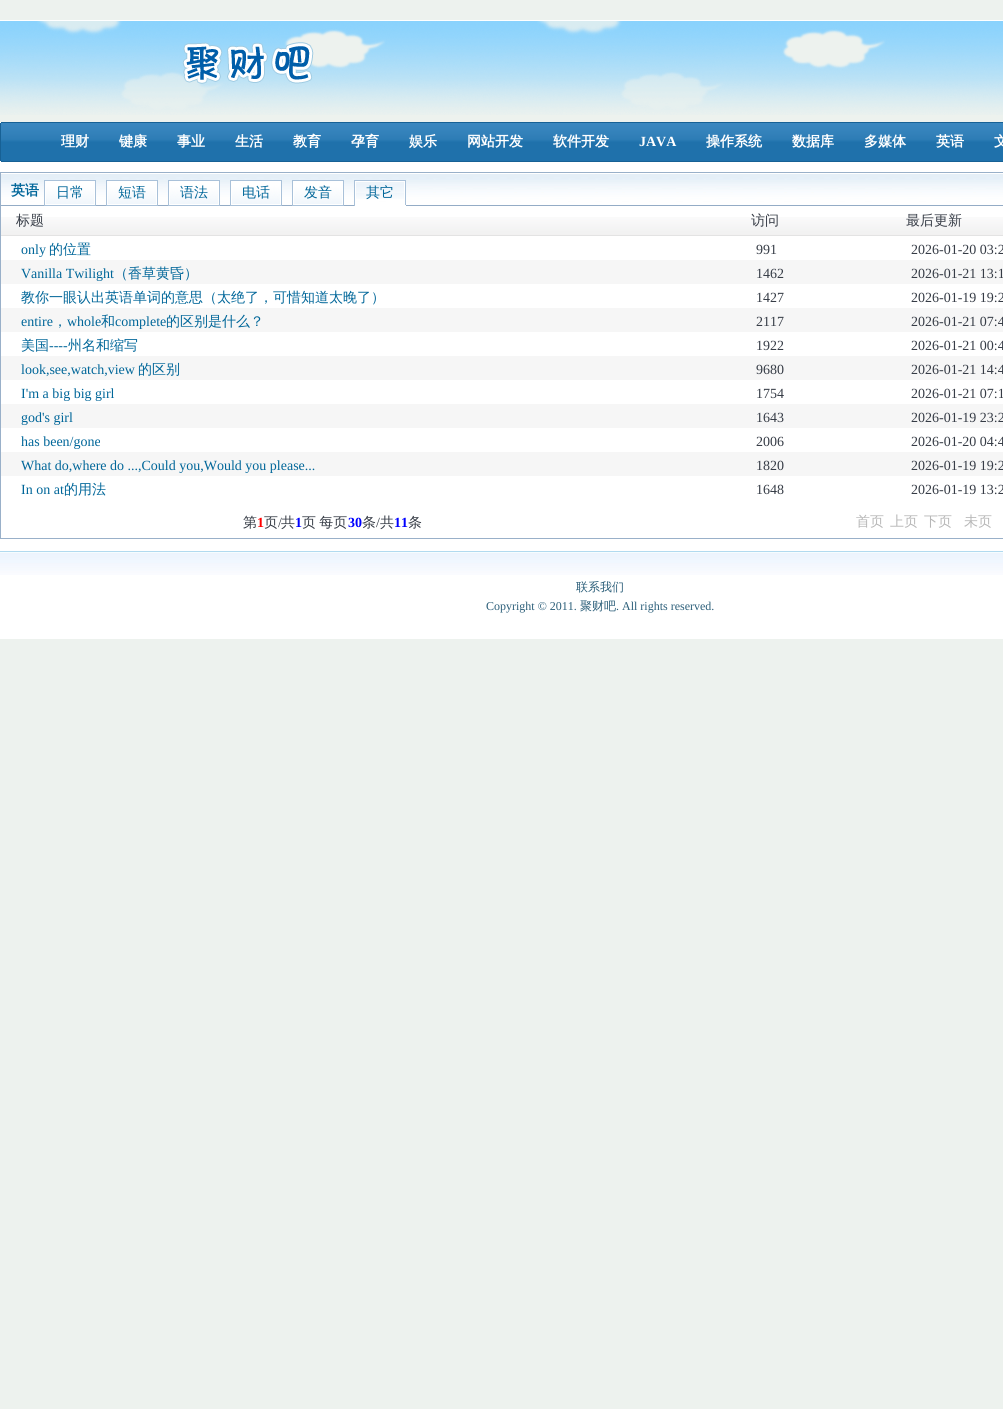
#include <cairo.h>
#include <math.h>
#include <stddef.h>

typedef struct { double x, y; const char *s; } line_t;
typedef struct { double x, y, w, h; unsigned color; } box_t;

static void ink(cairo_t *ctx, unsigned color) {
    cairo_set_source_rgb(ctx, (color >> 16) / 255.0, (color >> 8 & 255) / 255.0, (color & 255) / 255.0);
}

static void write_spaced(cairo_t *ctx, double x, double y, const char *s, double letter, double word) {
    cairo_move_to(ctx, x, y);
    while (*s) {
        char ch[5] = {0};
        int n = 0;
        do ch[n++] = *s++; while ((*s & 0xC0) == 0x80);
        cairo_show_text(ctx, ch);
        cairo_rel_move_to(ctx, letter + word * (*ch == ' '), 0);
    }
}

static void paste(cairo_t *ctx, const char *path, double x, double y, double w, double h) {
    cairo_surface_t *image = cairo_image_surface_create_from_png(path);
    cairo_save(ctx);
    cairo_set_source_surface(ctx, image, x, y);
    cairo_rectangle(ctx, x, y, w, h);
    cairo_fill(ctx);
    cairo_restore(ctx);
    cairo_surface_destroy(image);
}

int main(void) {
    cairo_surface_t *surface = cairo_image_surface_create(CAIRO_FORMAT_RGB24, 1003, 1409);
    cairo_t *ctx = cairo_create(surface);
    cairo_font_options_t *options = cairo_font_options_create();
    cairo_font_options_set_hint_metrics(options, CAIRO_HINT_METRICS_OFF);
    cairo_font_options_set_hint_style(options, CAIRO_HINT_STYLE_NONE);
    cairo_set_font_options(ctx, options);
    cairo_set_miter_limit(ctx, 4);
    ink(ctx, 0xEDF2EE);
    cairo_paint(ctx);
    ink(ctx, 0xFFFFFF);
    cairo_rectangle(ctx, 0, 20, 1003, 1);
    cairo_fill(ctx);
    paste(ctx, "media/1.png", 0, 21, 1003, 94);
    paste(ctx, "media/2.png", 182, 42, 132, 42);
    cairo_rectangle(ctx, 0, 122, 1003, 517);
    cairo_fill(ctx);
    paste(ctx, "media/3.png", 0, 122, 6, 40);
    paste(ctx, "media/4.png", 6, 122, 997, 40);
    cairo_select_font_face(ctx, "WenQuanYi Zen Hei", CAIRO_FONT_SLANT_NORMAL, CAIRO_FONT_WEIGHT_BOLD);
    cairo_set_font_size(ctx, 14);
    {
        static const line_t items[] = {
            {61, 146, "理财"},
            {119, 146, "键康"},
            {177, 146, "事业"},
            {235, 146, "生活"},
            {293, 146, "教育"},
            {351, 146, "孕育"},
            {409, 146, "娱乐"},
            {467, 146, "网站开发"},
            {553, 146, "软件开发"},
        };
        for (size_t i = 0; i < sizeof items / sizeof *items; i++) {
            cairo_move_to(ctx, items[i].x, items[i].y);
            cairo_show_text(ctx, items[i].s);
        }
    }
    cairo_select_font_face(ctx, "Liberation Serif", CAIRO_FONT_SLANT_NORMAL, CAIRO_FONT_WEIGHT_BOLD);
    cairo_move_to(ctx, 639, 146);
    cairo_show_text(ctx, "JAVA");
    cairo_select_font_face(ctx, "WenQuanYi Zen Hei", CAIRO_FONT_SLANT_NORMAL, CAIRO_FONT_WEIGHT_BOLD);
    {
        static const line_t items[] = {
            {706, 146, "操作系统"},
            {792, 146, "数据库"},
            {864, 146, "多媒体"},
            {936, 146, "英语"},
            {994, 146, "文"},
        };
        for (size_t i = 0; i < sizeof items / sizeof *items; i++) {
            cairo_move_to(ctx, items[i].x, items[i].y);
            cairo_show_text(ctx, items[i].s);
        }
    }
    cairo_rectangle(ctx, 0.5, 172.5, 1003, 366);
    ink(ctx, 0x99B0C9);
    cairo_set_line_width(ctx, 1);
    cairo_stroke(ctx);
    paste(ctx, "media/5.png", 1, 174, 1002, 32);
    ink(ctx, 0x006699);
    cairo_move_to(ctx, 11, 195);
    cairo_show_text(ctx, "英语");
    cairo_rectangle(ctx, 44.5, 180.5, 51, 25);
    ink(ctx, 0xA9C1D9);
    cairo_stroke(ctx);
    paste(ctx, "media/6.png", 46, 182, 48, 22);
    cairo_rectangle(ctx, 45.5, 181.5, 49, 23);
    ink(ctx, 0xFFFFFF);
    cairo_stroke(ctx);
    cairo_select_font_face(ctx, "WenQuanYi Zen Hei Medium", CAIRO_FONT_SLANT_NORMAL, CAIRO_FONT_WEIGHT_NORMAL);
    ink(ctx, 0x006699);
    cairo_move_to(ctx, 56, 197);
    cairo_show_text(ctx, "日常");
    cairo_rectangle(ctx, 106.5, 180.5, 51, 25);
    ink(ctx, 0xA9C1D9);
    cairo_stroke(ctx);
    paste(ctx, "media/6.png", 108, 182, 48, 22);
    cairo_rectangle(ctx, 107.5, 181.5, 49, 23);
    ink(ctx, 0xFFFFFF);
    cairo_stroke(ctx);
    ink(ctx, 0x006699);
    cairo_move_to(ctx, 118, 197);
    cairo_show_text(ctx, "短语");
    cairo_rectangle(ctx, 168.5, 180.5, 51, 25);
    ink(ctx, 0xA9C1D9);
    cairo_stroke(ctx);
    paste(ctx, "media/6.png", 170, 182, 48, 22);
    cairo_rectangle(ctx, 169.5, 181.5, 49, 23);
    ink(ctx, 0xFFFFFF);
    cairo_stroke(ctx);
    ink(ctx, 0x006699);
    cairo_move_to(ctx, 180, 197);
    cairo_show_text(ctx, "语法");
    cairo_rectangle(ctx, 230.5, 180.5, 51, 25);
    ink(ctx, 0xA9C1D9);
    cairo_stroke(ctx);
    paste(ctx, "media/6.png", 232, 182, 48, 22);
    cairo_rectangle(ctx, 231.5, 181.5, 49, 23);
    ink(ctx, 0xFFFFFF);
    cairo_stroke(ctx);
    ink(ctx, 0x006699);
    cairo_move_to(ctx, 242, 197);
    cairo_show_text(ctx, "电话");
    cairo_rectangle(ctx, 292.5, 180.5, 51, 25);
    ink(ctx, 0xA9C1D9);
    cairo_stroke(ctx);
    paste(ctx, "media/6.png", 294, 182, 48, 22);
    cairo_rectangle(ctx, 293.5, 181.5, 49, 23);
    ink(ctx, 0xFFFFFF);
    cairo_stroke(ctx);
    ink(ctx, 0x006699);
    cairo_move_to(ctx, 304, 197);
    cairo_show_text(ctx, "发音");
    {
        static const box_t items[] = {
            {354, 180, 52, 1, 0xA9C1D9},
            {405, 180, 1, 26, 0xA9C1D9},
            {354, 205, 52, 1, 0xFFFFFF},
            {354, 180, 1, 26, 0xA9C1D9},
        };
        for (size_t i = 0; i < sizeof items / sizeof *items; i++) {
            ink(ctx, items[i].color);
            cairo_rectangle(ctx, items[i].x, items[i].y, items[i].w, items[i].h);
            cairo_fill(ctx);
        }
    }
    paste(ctx, "media/7.png", 356, 184, 48, 15);
    cairo_rectangle(ctx, 355.5, 181.5, 49, 23);
    ink(ctx, 0xFFFFFF);
    cairo_stroke(ctx);
    ink(ctx, 0x006699);
    cairo_move_to(ctx, 366, 197);
    cairo_show_text(ctx, "其它");
    paste(ctx, "media/8.png", 1, 217, 735, 18);
    ink(ctx, 0xE3E3E3);
    cairo_rectangle(ctx, 1, 235, 1002, 1);
    cairo_fill(ctx);
    ink(ctx, 0x363C46);
    cairo_move_to(ctx, 16, 225);
    cairo_show_text(ctx, "标题");
    paste(ctx, "media/9.png", 736, 217, 155, 18);
    cairo_move_to(ctx, 751, 225);
    cairo_show_text(ctx, "访问");
    paste(ctx, "media/10.png", 891, 217, 112, 18);
    cairo_move_to(ctx, 906, 225);
    cairo_show_text(ctx, "最后更新");
    cairo_select_font_face(ctx, "Liberation Serif", CAIRO_FONT_SLANT_NORMAL, CAIRO_FONT_WEIGHT_NORMAL);
    ink(ctx, 0x006699);
    cairo_move_to(ctx, 21, 254);
    cairo_show_text(ctx, "only");
    cairo_select_font_face(ctx, "WenQuanYi Zen Hei Medium", CAIRO_FONT_SLANT_NORMAL, CAIRO_FONT_WEIGHT_NORMAL);
    cairo_move_to(ctx, 49, 254);
    cairo_show_text(ctx, "的位置");
    cairo_select_font_face(ctx, "Liberation Serif", CAIRO_FONT_SLANT_NORMAL, CAIRO_FONT_WEIGHT_NORMAL);
    ink(ctx, 0x363C46);
    cairo_move_to(ctx, 756, 254);
    cairo_show_text(ctx, "991");
    cairo_move_to(ctx, 911, 254);
    cairo_show_text(ctx, "2026-01-20 03:2");
    ink(ctx, 0xF6F6F6);
    cairo_rectangle(ctx, 1, 260, 1002, 24);
    cairo_fill(ctx);
    ink(ctx, 0x006699);
    cairo_move_to(ctx, 21, 278);
    cairo_show_text(ctx, "Vanilla Twilight");
    cairo_select_font_face(ctx, "WenQuanYi Zen Hei Medium", CAIRO_FONT_SLANT_NORMAL, CAIRO_FONT_WEIGHT_NORMAL);
    cairo_move_to(ctx, 114, 278);
    cairo_show_text(ctx, "（香草黄昏）");
    cairo_select_font_face(ctx, "Liberation Serif", CAIRO_FONT_SLANT_NORMAL, CAIRO_FONT_WEIGHT_NORMAL);
    ink(ctx, 0x363C46);
    cairo_move_to(ctx, 756, 278);
    cairo_show_text(ctx, "1462");
    cairo_move_to(ctx, 911, 278);
    cairo_show_text(ctx, "2026-01-21 13:1");
    cairo_select_font_face(ctx, "WenQuanYi Zen Hei Medium", CAIRO_FONT_SLANT_NORMAL, CAIRO_FONT_WEIGHT_NORMAL);
    ink(ctx, 0x006699);
    cairo_move_to(ctx, 21, 302);
    cairo_show_text(ctx, "教你一眼认出英语单词的意思（太绝了，可惜知道太晚了）");
    cairo_select_font_face(ctx, "Liberation Serif", CAIRO_FONT_SLANT_NORMAL, CAIRO_FONT_WEIGHT_NORMAL);
    ink(ctx, 0x363C46);
    cairo_move_to(ctx, 756, 302);
    cairo_show_text(ctx, "1427");
    cairo_move_to(ctx, 911, 302);
    cairo_show_text(ctx, "2026-01-19 19:2");
    ink(ctx, 0xF6F6F6);
    cairo_rectangle(ctx, 1, 308, 1002, 24);
    cairo_fill(ctx);
    ink(ctx, 0x006699);
    cairo_move_to(ctx, 21, 326);
    cairo_show_text(ctx, "entire");
    cairo_select_font_face(ctx, "WenQuanYi Zen Hei Medium", CAIRO_FONT_SLANT_NORMAL, CAIRO_FONT_WEIGHT_NORMAL);
    cairo_move_to(ctx, 53, 326);
    cairo_show_text(ctx, "，");
    cairo_select_font_face(ctx, "Liberation Serif", CAIRO_FONT_SLANT_NORMAL, CAIRO_FONT_WEIGHT_NORMAL);
    cairo_move_to(ctx, 67, 326);
    cairo_show_text(ctx, "whole");
    cairo_select_font_face(ctx, "WenQuanYi Zen Hei Medium", CAIRO_FONT_SLANT_NORMAL, CAIRO_FONT_WEIGHT_NORMAL);
    cairo_move_to(ctx, 101, 326);
    cairo_show_text(ctx, "和");
    cairo_select_font_face(ctx, "Liberation Serif", CAIRO_FONT_SLANT_NORMAL, CAIRO_FONT_WEIGHT_NORMAL);
    cairo_move_to(ctx, 115, 326);
    cairo_show_text(ctx, "complete");
    cairo_select_font_face(ctx, "WenQuanYi Zen Hei Medium", CAIRO_FONT_SLANT_NORMAL, CAIRO_FONT_WEIGHT_NORMAL);
    cairo_move_to(ctx, 166, 326);
    cairo_show_text(ctx, "的区别是什么？");
    cairo_select_font_face(ctx, "Liberation Serif", CAIRO_FONT_SLANT_NORMAL, CAIRO_FONT_WEIGHT_NORMAL);
    ink(ctx, 0x363C46);
    cairo_move_to(ctx, 756, 326);
    cairo_show_text(ctx, "2117");
    cairo_move_to(ctx, 911, 326);
    cairo_show_text(ctx, "2026-01-21 07:4");
    cairo_select_font_face(ctx, "WenQuanYi Zen Hei Medium", CAIRO_FONT_SLANT_NORMAL, CAIRO_FONT_WEIGHT_NORMAL);
    ink(ctx, 0x006699);
    cairo_move_to(ctx, 21, 350);
    cairo_show_text(ctx, "美国");
    cairo_select_font_face(ctx, "Liberation Serif", CAIRO_FONT_SLANT_NORMAL, CAIRO_FONT_WEIGHT_NORMAL);
    cairo_move_to(ctx, 49, 350);
    cairo_show_text(ctx, "----");
    cairo_select_font_face(ctx, "WenQuanYi Zen Hei Medium", CAIRO_FONT_SLANT_NORMAL, CAIRO_FONT_WEIGHT_NORMAL);
    cairo_move_to(ctx, 68, 350);
    cairo_show_text(ctx, "州名和缩写");
    cairo_select_font_face(ctx, "Liberation Serif", CAIRO_FONT_SLANT_NORMAL, CAIRO_FONT_WEIGHT_NORMAL);
    ink(ctx, 0x363C46);
    cairo_move_to(ctx, 756, 350);
    cairo_show_text(ctx, "1922");
    cairo_move_to(ctx, 911, 350);
    cairo_show_text(ctx, "2026-01-21 00:4");
    ink(ctx, 0xF6F6F6);
    cairo_rectangle(ctx, 1, 356, 1002, 24);
    cairo_fill(ctx);
    ink(ctx, 0x006699);
    cairo_move_to(ctx, 21, 374);
    cairo_show_text(ctx, "look,see,watch,view");
    cairo_select_font_face(ctx, "WenQuanYi Zen Hei Medium", CAIRO_FONT_SLANT_NORMAL, CAIRO_FONT_WEIGHT_NORMAL);
    cairo_move_to(ctx, 138, 374);
    cairo_show_text(ctx, "的区别");
    cairo_select_font_face(ctx, "Liberation Serif", CAIRO_FONT_SLANT_NORMAL, CAIRO_FONT_WEIGHT_NORMAL);
    ink(ctx, 0x363C46);
    cairo_move_to(ctx, 756, 374);
    cairo_show_text(ctx, "9680");
    cairo_move_to(ctx, 911, 374);
    cairo_show_text(ctx, "2026-01-21 14:4");
    ink(ctx, 0x006699);
    cairo_move_to(ctx, 21, 398);
    cairo_show_text(ctx, "I'm a big big girl");
    ink(ctx, 0x363C46);
    cairo_move_to(ctx, 756, 398);
    cairo_show_text(ctx, "1754");
    cairo_move_to(ctx, 911, 398);
    cairo_show_text(ctx, "2026-01-21 07:1");
    ink(ctx, 0xF6F6F6);
    cairo_rectangle(ctx, 1, 404, 1002, 24);
    cairo_fill(ctx);
    ink(ctx, 0x006699);
    cairo_move_to(ctx, 21, 422);
    cairo_show_text(ctx, "god's girl");
    ink(ctx, 0x363C46);
    cairo_move_to(ctx, 756, 422);
    cairo_show_text(ctx, "1643");
    cairo_move_to(ctx, 911, 422);
    cairo_show_text(ctx, "2026-01-19 23:2");
    ink(ctx, 0x006699);
    cairo_move_to(ctx, 21, 446);
    cairo_show_text(ctx, "has been/gone");
    ink(ctx, 0x363C46);
    cairo_move_to(ctx, 756, 446);
    cairo_show_text(ctx, "2006");
    cairo_move_to(ctx, 911, 446);
    cairo_show_text(ctx, "2026-01-20 04:4");
    ink(ctx, 0xF6F6F6);
    cairo_rectangle(ctx, 1, 452, 1002, 24);
    cairo_fill(ctx);
    ink(ctx, 0x006699);
    cairo_move_to(ctx, 21, 470);
    cairo_show_text(ctx, "What do,where do ...,Could you,Would you please...");
    ink(ctx, 0x363C46);
    cairo_move_to(ctx, 756, 470);
    cairo_show_text(ctx, "1820");
    cairo_move_to(ctx, 911, 470);
    cairo_show_text(ctx, "2026-01-19 19:2");
    ink(ctx, 0x006699);
    cairo_move_to(ctx, 21, 494);
    cairo_show_text(ctx, "In on at");
    cairo_select_font_face(ctx, "WenQuanYi Zen Hei Medium", CAIRO_FONT_SLANT_NORMAL, CAIRO_FONT_WEIGHT_NORMAL);
    cairo_move_to(ctx, 64, 494);
    cairo_show_text(ctx, "的用法");
    cairo_select_font_face(ctx, "Liberation Serif", CAIRO_FONT_SLANT_NORMAL, CAIRO_FONT_WEIGHT_NORMAL);
    ink(ctx, 0x363C46);
    cairo_move_to(ctx, 756, 494);
    cairo_show_text(ctx, "1648");
    cairo_move_to(ctx, 911, 494);
    cairo_show_text(ctx, "2026-01-19 13:2");
    cairo_select_font_face(ctx, "WenQuanYi Zen Hei Medium", CAIRO_FONT_SLANT_NORMAL, CAIRO_FONT_WEIGHT_NORMAL);
    cairo_move_to(ctx, 243, 527);
    cairo_show_text(ctx, "第");
    cairo_select_font_face(ctx, "Liberation Serif", CAIRO_FONT_SLANT_NORMAL, CAIRO_FONT_WEIGHT_BOLD);
    ink(ctx, 0xFF0000);
    cairo_move_to(ctx, 257, 527);
    cairo_show_text(ctx, "1");
    cairo_select_font_face(ctx, "WenQuanYi Zen Hei Medium", CAIRO_FONT_SLANT_NORMAL, CAIRO_FONT_WEIGHT_NORMAL);
    ink(ctx, 0x363C46);
    cairo_move_to(ctx, 264, 527);
    cairo_show_text(ctx, "页");
    cairo_select_font_face(ctx, "Liberation Serif", CAIRO_FONT_SLANT_NORMAL, CAIRO_FONT_WEIGHT_NORMAL);
    cairo_move_to(ctx, 278, 527);
    cairo_show_text(ctx, "/");
    cairo_select_font_face(ctx, "WenQuanYi Zen Hei Medium", CAIRO_FONT_SLANT_NORMAL, CAIRO_FONT_WEIGHT_NORMAL);
    cairo_move_to(ctx, 281, 527);
    cairo_show_text(ctx, "共");
    cairo_select_font_face(ctx, "Liberation Serif", CAIRO_FONT_SLANT_NORMAL, CAIRO_FONT_WEIGHT_BOLD);
    ink(ctx, 0x0000FF);
    cairo_move_to(ctx, 295, 527);
    cairo_show_text(ctx, "1");
    cairo_select_font_face(ctx, "WenQuanYi Zen Hei Medium", CAIRO_FONT_SLANT_NORMAL, CAIRO_FONT_WEIGHT_NORMAL);
    ink(ctx, 0x363C46);
    write_spaced(ctx, 302, 527, "页 每页", 0, -1);
    cairo_select_font_face(ctx, "Liberation Serif", CAIRO_FONT_SLANT_NORMAL, CAIRO_FONT_WEIGHT_BOLD);
    ink(ctx, 0x0000FF);
    cairo_move_to(ctx, 348, 527);
    cairo_show_text(ctx, "30");
    cairo_select_font_face(ctx, "WenQuanYi Zen Hei Medium", CAIRO_FONT_SLANT_NORMAL, CAIRO_FONT_WEIGHT_NORMAL);
    ink(ctx, 0x363C46);
    cairo_move_to(ctx, 362, 527);
    cairo_show_text(ctx, "条");
    cairo_select_font_face(ctx, "Liberation Serif", CAIRO_FONT_SLANT_NORMAL, CAIRO_FONT_WEIGHT_NORMAL);
    cairo_move_to(ctx, 376, 527);
    cairo_show_text(ctx, "/");
    cairo_select_font_face(ctx, "WenQuanYi Zen Hei Medium", CAIRO_FONT_SLANT_NORMAL, CAIRO_FONT_WEIGHT_NORMAL);
    cairo_move_to(ctx, 380, 527);
    cairo_show_text(ctx, "共");
    cairo_select_font_face(ctx, "Liberation Serif", CAIRO_FONT_SLANT_NORMAL, CAIRO_FONT_WEIGHT_BOLD);
    ink(ctx, 0x0000FF);
    cairo_move_to(ctx, 394, 527);
    cairo_show_text(ctx, "11");
    cairo_select_font_face(ctx, "WenQuanYi Zen Hei Medium", CAIRO_FONT_SLANT_NORMAL, CAIRO_FONT_WEIGHT_NORMAL);
    ink(ctx, 0x363C46);
    cairo_move_to(ctx, 408, 527);
    cairo_show_text(ctx, "条");
    ink(ctx, 0xB7B7B7);
    {
        static const line_t items[] = {
            {856, 526, "首页"},
            {890, 526, "上页"},
            {924, 526, "下页"},
            {964, 526, "未页"},
        };
        for (size_t i = 0; i < sizeof items / sizeof *items; i++) {
            cairo_move_to(ctx, items[i].x, items[i].y);
            cairo_show_text(ctx, items[i].s);
        }
    }
    paste(ctx, "media/11.png", 0, 551, 1003, 24);
    cairo_set_font_size(ctx, 12);
    ink(ctx, 0x2B5E79);
    cairo_move_to(ctx, 576, 591);
    cairo_show_text(ctx, "联系我们");
    cairo_select_font_face(ctx, "Liberation Serif", CAIRO_FONT_SLANT_NORMAL, CAIRO_FONT_WEIGHT_NORMAL);
    cairo_move_to(ctx, 486, 610);
    cairo_show_text(ctx, "Copyright © 2011.");
    cairo_select_font_face(ctx, "WenQuanYi Zen Hei Medium", CAIRO_FONT_SLANT_NORMAL, CAIRO_FONT_WEIGHT_NORMAL);
    cairo_move_to(ctx, 580, 610);
    cairo_show_text(ctx, "聚财吧");
    cairo_select_font_face(ctx, "Liberation Serif", CAIRO_FONT_SLANT_NORMAL, CAIRO_FONT_WEIGHT_NORMAL);
    cairo_move_to(ctx, 616, 610);
    cairo_show_text(ctx, ". All rights reserved.");
    cairo_surface_write_to_png(surface, "image.png");
    cairo_font_options_destroy(options);
    cairo_destroy(ctx);
    cairo_surface_destroy(surface);
    return 0;
}
